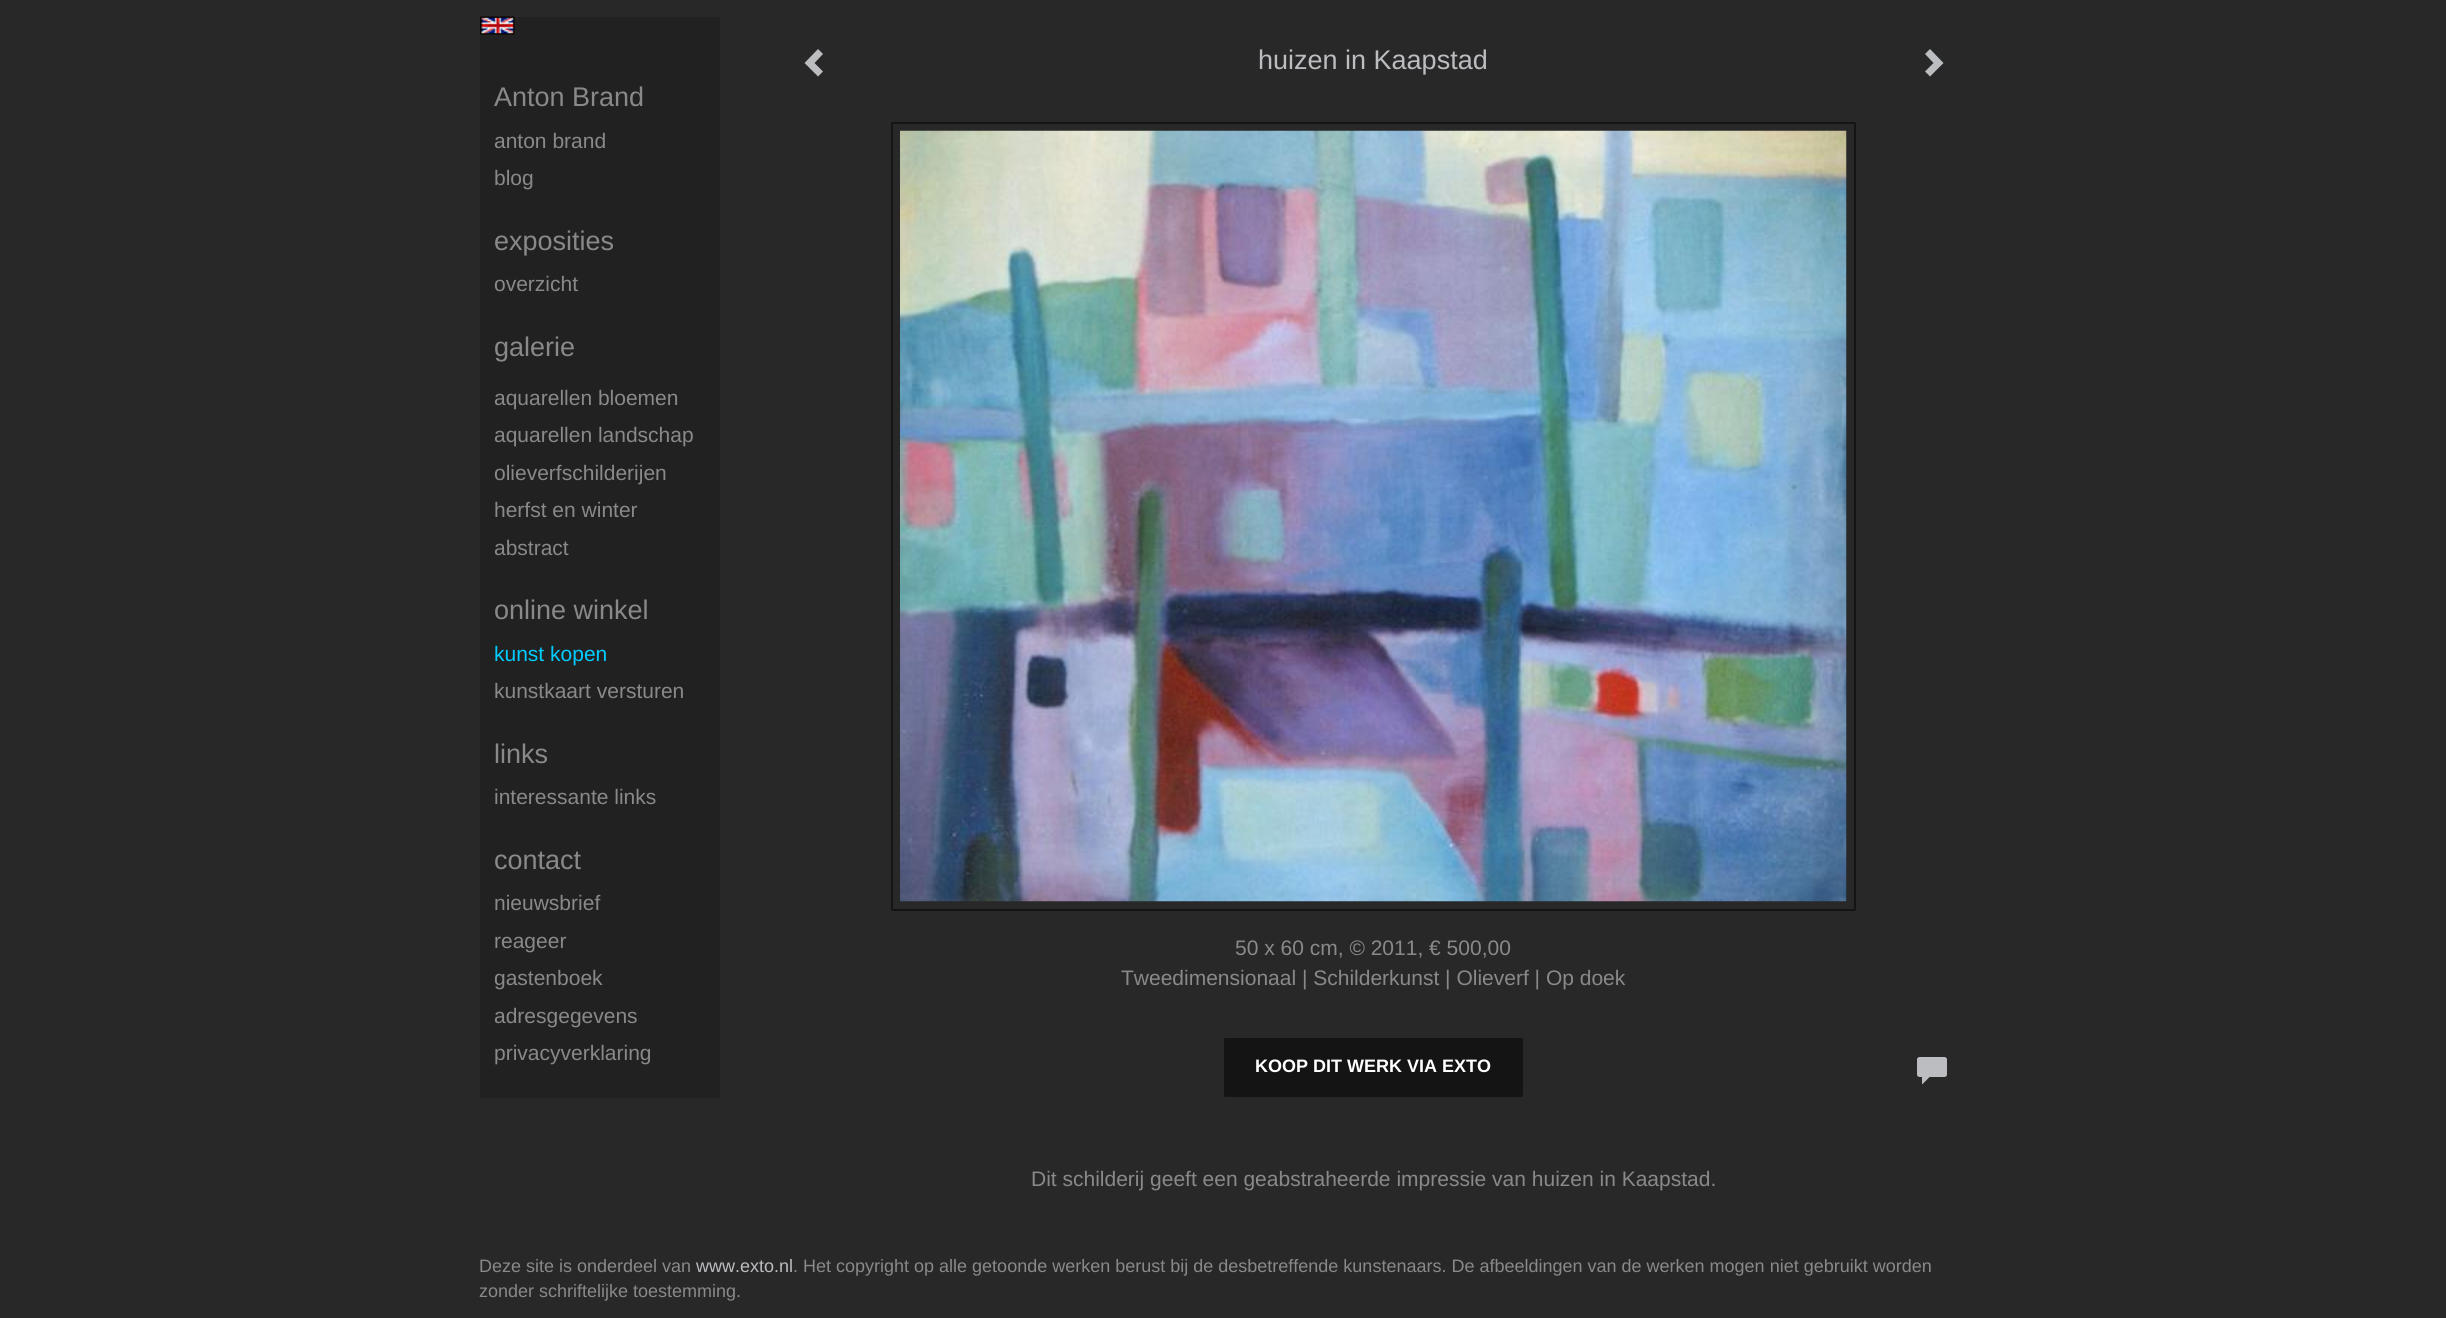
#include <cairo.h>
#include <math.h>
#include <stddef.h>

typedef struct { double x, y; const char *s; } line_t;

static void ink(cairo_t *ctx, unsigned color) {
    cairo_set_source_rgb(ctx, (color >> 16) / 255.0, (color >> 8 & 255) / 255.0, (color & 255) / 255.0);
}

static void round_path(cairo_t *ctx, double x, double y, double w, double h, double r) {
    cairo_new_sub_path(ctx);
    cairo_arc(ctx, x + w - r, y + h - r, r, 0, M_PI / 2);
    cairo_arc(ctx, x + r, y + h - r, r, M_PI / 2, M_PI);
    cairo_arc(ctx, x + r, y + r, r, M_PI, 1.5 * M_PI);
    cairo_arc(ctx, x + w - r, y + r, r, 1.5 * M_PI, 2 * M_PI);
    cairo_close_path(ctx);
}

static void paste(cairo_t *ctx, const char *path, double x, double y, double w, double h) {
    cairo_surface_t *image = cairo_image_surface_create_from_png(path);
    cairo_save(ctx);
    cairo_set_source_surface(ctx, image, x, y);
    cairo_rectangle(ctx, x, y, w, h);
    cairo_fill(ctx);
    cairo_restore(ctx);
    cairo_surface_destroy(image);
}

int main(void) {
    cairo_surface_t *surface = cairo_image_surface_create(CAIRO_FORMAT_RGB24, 2446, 1318);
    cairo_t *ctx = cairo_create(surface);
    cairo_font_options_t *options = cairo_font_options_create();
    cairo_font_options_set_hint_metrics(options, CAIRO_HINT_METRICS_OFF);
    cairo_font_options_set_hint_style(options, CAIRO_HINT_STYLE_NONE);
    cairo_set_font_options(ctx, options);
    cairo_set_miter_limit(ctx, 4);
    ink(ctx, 0x282828);
    cairo_paint(ctx);
    ink(ctx, 0x212121);
    cairo_rectangle(ctx, 480, 17, 240, 1081);
    cairo_fill(ctx);
    paste(ctx, "media/1.png", 480, 16, 35, 19);
    cairo_select_font_face(ctx, "Liberation Sans", CAIRO_FONT_SLANT_NORMAL, CAIRO_FONT_WEIGHT_NORMAL);
    cairo_set_font_size(ctx, 27);
    ink(ctx, 0x89898B);
    cairo_move_to(ctx, 494, 106);
    cairo_show_text(ctx, "Anton Brand");
    cairo_set_font_size(ctx, 21);
    cairo_move_to(ctx, 494, 148);
    cairo_show_text(ctx, "anton brand");
    cairo_move_to(ctx, 494, 185);
    cairo_show_text(ctx, "blog");
    cairo_set_font_size(ctx, 27);
    cairo_move_to(ctx, 494, 250);
    cairo_show_text(ctx, "exposities");
    cairo_set_font_size(ctx, 21);
    cairo_move_to(ctx, 494, 291);
    cairo_show_text(ctx, "overzicht");
    cairo_set_font_size(ctx, 27);
    cairo_move_to(ctx, 494, 356);
    cairo_show_text(ctx, "galerie");
    cairo_set_font_size(ctx, 21);
    {
        static const line_t items[] = {
            {494, 405, "aquarellen bloemen"},
            {494, 442, "aquarellen landschap"},
            {494, 480, "olieverfschilderijen"},
            {494, 517, "herfst en winter"},
            {494, 555, "abstract"},
        };
        for (size_t i = 0; i < sizeof items / sizeof *items; i++) {
            cairo_move_to(ctx, items[i].x, items[i].y);
            cairo_show_text(ctx, items[i].s);
        }
    }
    cairo_set_font_size(ctx, 27);
    cairo_move_to(ctx, 494, 619);
    cairo_show_text(ctx, "online winkel");
    cairo_set_font_size(ctx, 21);
    ink(ctx, 0x00CCFF);
    cairo_move_to(ctx, 494, 661);
    cairo_show_text(ctx, "kunst kopen");
    ink(ctx, 0x89898B);
    cairo_move_to(ctx, 494, 698);
    cairo_show_text(ctx, "kunstkaart versturen");
    cairo_set_font_size(ctx, 27);
    cairo_move_to(ctx, 494, 763);
    cairo_show_text(ctx, "links");
    cairo_set_font_size(ctx, 21);
    cairo_move_to(ctx, 494, 804);
    cairo_show_text(ctx, "interessante links");
    cairo_set_font_size(ctx, 27);
    cairo_move_to(ctx, 494, 869);
    cairo_show_text(ctx, "contact");
    cairo_set_font_size(ctx, 21);
    {
        static const line_t items[] = {
            {494, 910, "nieuwsbrief"},
            {494, 948, "reageer"},
            {494, 985, "gastenboek"},
            {494, 1023, "adresgegevens"},
            {494, 1060, "privacyverklaring"},
        };
        for (size_t i = 0; i < sizeof items / sizeof *items; i++) {
            cairo_move_to(ctx, items[i].x, items[i].y);
            cairo_show_text(ctx, items[i].s);
        }
    }
    ink(ctx, 0xBCBDC0);
    cairo_new_path(ctx);
    cairo_move_to(ctx, 823, 54);
    cairo_line_to(ctx, 814.5, 63);
    cairo_line_to(ctx, 823, 71.5);
    cairo_line_to(ctx, 818, 76.5);
    cairo_line_to(ctx, 804.5, 63);
    cairo_line_to(ctx, 818, 49);
    cairo_close_path(ctx);
    cairo_fill(ctx);
    cairo_set_font_size(ctx, 27);
    cairo_move_to(ctx, 1258, 69);
    cairo_show_text(ctx, "huizen in Kaapstad");
    cairo_new_path(ctx);
    cairo_move_to(ctx, 1943.5, 63);
    cairo_line_to(ctx, 1930, 76.5);
    cairo_line_to(ctx, 1925, 71.5);
    cairo_line_to(ctx, 1933.5, 63);
    cairo_line_to(ctx, 1925, 54);
    cairo_line_to(ctx, 1930, 49);
    cairo_close_path(ctx);
    cairo_fill(ctx);
    round_path(ctx, 892, 123, 963, 787, 0.5);
    ink(ctx, 0x141414);
    cairo_stroke(ctx);
    paste(ctx, "media/2.png", 900, 130, 947, 772);
    cairo_set_font_size(ctx, 21);
    ink(ctx, 0x89898B);
    cairo_move_to(ctx, 1235, 955);
    cairo_show_text(ctx, "50 x 60 cm, © 2011, € 500,00");
    cairo_move_to(ctx, 1121, 985);
    cairo_show_text(ctx, "Tweedimensionaal | Schilderkunst | Olieverf | Op doek");
    ink(ctx, 0x141414);
    round_path(ctx, 1225, 1039, 297, 57, 0.5);
    cairo_fill_preserve(ctx);
    cairo_stroke(ctx);
    cairo_select_font_face(ctx, "Liberation Sans", CAIRO_FONT_SLANT_NORMAL, CAIRO_FONT_WEIGHT_BOLD);
    cairo_set_font_size(ctx, 18);
    ink(ctx, 0xFFFFFF);
    cairo_move_to(ctx, 1255, 1072);
    cairo_show_text(ctx, "KOOP DIT WERK VIA EXTO");
    paste(ctx, "media/3.png", 1917, 1057, 30, 28);
    cairo_select_font_face(ctx, "Liberation Sans", CAIRO_FONT_SLANT_NORMAL, CAIRO_FONT_WEIGHT_NORMAL);
    cairo_set_font_size(ctx, 21);
    ink(ctx, 0x89898B);
    cairo_move_to(ctx, 1031, 1186);
    cairo_show_text(ctx, "Dit schilderij geeft een geabstraheerde impressie van huizen in Kaapstad.");
    cairo_set_font_size(ctx, 18);
    cairo_move_to(ctx, 479, 1272);
    cairo_show_text(ctx, "Deze site is onderdeel van");
    ink(ctx, 0xBCBDC0);
    cairo_move_to(ctx, 696, 1272);
    cairo_show_text(ctx, "www.exto.nl");
    ink(ctx, 0x89898B);
    cairo_move_to(ctx, 793, 1272);
    cairo_show_text(ctx, ". Het copyright op alle getoonde werken berust bij de desbetreffende kunstenaars. De afbeeldingen van de werken mogen niet gebruikt worden");
    cairo_move_to(ctx, 479, 1297);
    cairo_show_text(ctx, "zonder schriftelijke toestemming.");
    cairo_surface_write_to_png(surface, "image.png");
    cairo_font_options_destroy(options);
    cairo_destroy(ctx);
    cairo_surface_destroy(surface);
    return 0;
}
